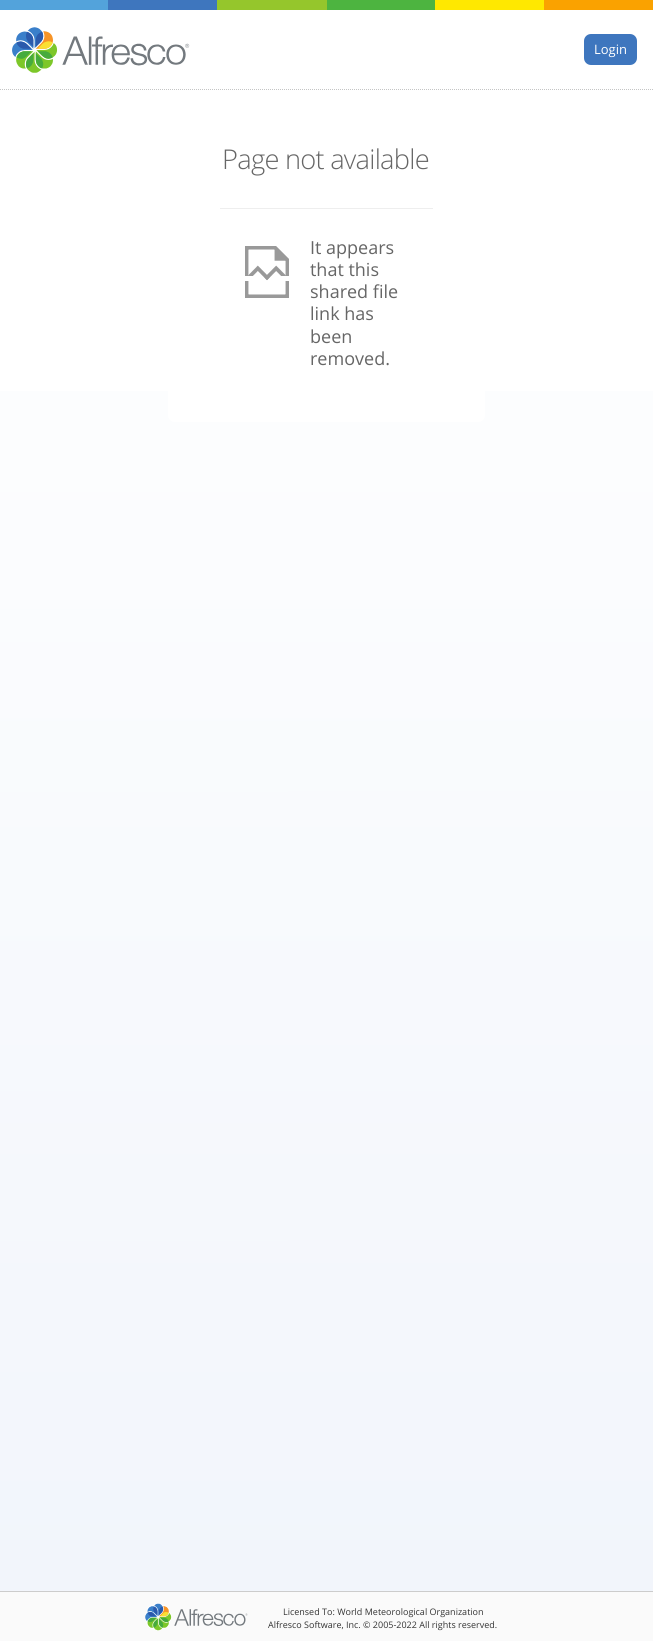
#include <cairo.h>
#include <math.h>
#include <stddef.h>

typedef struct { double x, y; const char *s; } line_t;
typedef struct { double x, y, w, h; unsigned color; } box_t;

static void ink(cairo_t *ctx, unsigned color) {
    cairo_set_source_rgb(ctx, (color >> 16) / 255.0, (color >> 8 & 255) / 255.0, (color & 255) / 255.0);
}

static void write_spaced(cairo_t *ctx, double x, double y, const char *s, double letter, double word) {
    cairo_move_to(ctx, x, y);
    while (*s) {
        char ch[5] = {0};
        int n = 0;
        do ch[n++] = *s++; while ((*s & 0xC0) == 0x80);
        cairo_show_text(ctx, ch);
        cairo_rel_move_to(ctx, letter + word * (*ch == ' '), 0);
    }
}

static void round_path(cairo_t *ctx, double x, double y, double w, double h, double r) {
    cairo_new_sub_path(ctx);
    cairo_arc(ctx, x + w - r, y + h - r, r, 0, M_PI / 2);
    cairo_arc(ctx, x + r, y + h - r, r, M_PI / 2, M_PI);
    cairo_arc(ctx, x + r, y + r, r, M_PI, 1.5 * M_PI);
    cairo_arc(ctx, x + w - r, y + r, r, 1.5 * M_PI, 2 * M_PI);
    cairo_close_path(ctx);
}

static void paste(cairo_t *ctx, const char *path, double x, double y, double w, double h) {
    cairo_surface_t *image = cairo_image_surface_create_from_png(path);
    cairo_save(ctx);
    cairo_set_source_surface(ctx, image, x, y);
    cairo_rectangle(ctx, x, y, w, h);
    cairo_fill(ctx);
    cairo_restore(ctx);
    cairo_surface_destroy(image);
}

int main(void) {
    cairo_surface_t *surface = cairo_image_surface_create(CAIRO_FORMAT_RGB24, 653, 1641);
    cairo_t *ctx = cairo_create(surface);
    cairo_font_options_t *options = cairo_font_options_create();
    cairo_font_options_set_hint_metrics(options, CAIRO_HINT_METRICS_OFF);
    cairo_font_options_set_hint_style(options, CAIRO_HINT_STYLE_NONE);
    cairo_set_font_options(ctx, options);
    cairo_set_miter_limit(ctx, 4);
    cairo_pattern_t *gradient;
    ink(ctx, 0xFFFFFF);
    cairo_paint(ctx);
    gradient = cairo_pattern_create_linear(326, 118, 327, 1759);
    cairo_pattern_add_color_stop_rgba(gradient, 0, 1, 1, 1, 1);
    cairo_pattern_add_color_stop_rgba(gradient, 1, 0.941, 0.957, 0.984, 1);
    cairo_set_source(ctx, gradient);
    cairo_pattern_destroy(gradient);
    cairo_rectangle(ctx, 0, 391, 653, 1200);
    cairo_fill(ctx);
    cairo_new_path(ctx);
    cairo_move_to(ctx, 0, 89.5);
    cairo_line_to(ctx, 653, 89.5);
    ink(ctx, 0xC4C5C5);
    cairo_set_line_width(ctx, 1);
    cairo_set_dash(ctx, (double[]){1, 1}, 2, 0);
    cairo_stroke(ctx);
    {
        static const box_t items[] = {
            {0, 0, 108, 10, 0x53A3DB},
            {108, 0, 109, 10, 0x3E76BE},
            {217, 0, 110, 10, 0x95C62C},
            {327, 0, 108, 10, 0x4DB440},
            {435, 0, 109, 10, 0xFFE800},
            {544, 0, 109, 10, 0xFAA200},
        };
        for (size_t i = 0; i < sizeof items / sizeof *items; i++) {
            ink(ctx, items[i].color);
            cairo_rectangle(ctx, items[i].x, items[i].y, items[i].w, items[i].h);
            cairo_fill(ctx);
        }
    }
    paste(ctx, "media/1.png", 12, 27, 178, 46);
    ink(ctx, 0x3E76BE);
    round_path(ctx, 584, 34, 53, 31, 7);
    cairo_fill(ctx);
    cairo_select_font_face(ctx, "Open Sans", CAIRO_FONT_SLANT_NORMAL, CAIRO_FONT_WEIGHT_NORMAL);
    cairo_set_font_size(ctx, 13);
    ink(ctx, 0xFFFFFF);
    cairo_move_to(ctx, 594, 54);
    cairo_show_text(ctx, "Login");
    round_path(ctx, 168, 116, 317, 306, 7);
    cairo_fill(ctx);
    cairo_select_font_face(ctx, "Open Sans Light", CAIRO_FONT_SLANT_NORMAL, CAIRO_FONT_WEIGHT_NORMAL);
    cairo_set_font_size(ctx, 27.25);
    ink(ctx, 0x666666);
    write_spaced(ctx, 222, 169, "Page not available", -0.75, 0);
    ink(ctx, 0xEEEEEE);
    cairo_rectangle(ctx, 220, 208, 213, 1);
    cairo_fill(ctx);
    paste(ctx, "media/2.png", 245, 246, 44, 52);
    cairo_select_font_face(ctx, "Open Sans", CAIRO_FONT_SLANT_NORMAL, CAIRO_FONT_WEIGHT_NORMAL);
    cairo_set_font_size(ctx, 18);
    ink(ctx, 0x666666);
    {
        static const line_t items[] = {
            {310, 254, "It appears"},
            {310, 276, "that this"},
            {310, 298, "shared file"},
            {310, 320, "link has"},
            {310, 343, "been"},
            {310, 365, "removed."},
        };
        for (size_t i = 0; i < sizeof items / sizeof *items; i++) {
            cairo_move_to(ctx, items[i].x, items[i].y);
            cairo_show_text(ctx, items[i].s);
        }
    }
    ink(ctx, 0xFAFAFA);
    cairo_rectangle(ctx, 0, 1592, 653, 49);
    cairo_fill(ctx);
    ink(ctx, 0xCCCCCC);
    cairo_rectangle(ctx, 0, 1591, 653, 1);
    cairo_fill(ctx);
    paste(ctx, "media/3.png", 145, 1603, 103, 28);
    cairo_set_font_size(ctx, 9);
    ink(ctx, 0x333333);
    cairo_move_to(ctx, 283, 1615);
    cairo_show_text(ctx, "Licensed To: World Meteorological Organization");
    cairo_move_to(ctx, 268, 1628);
    cairo_show_text(ctx, "Alfresco Software, Inc. © 2005-2022 All rights reserved.");
    cairo_surface_write_to_png(surface, "image.png");
    cairo_font_options_destroy(options);
    cairo_destroy(ctx);
    cairo_surface_destroy(surface);
    return 0;
}
